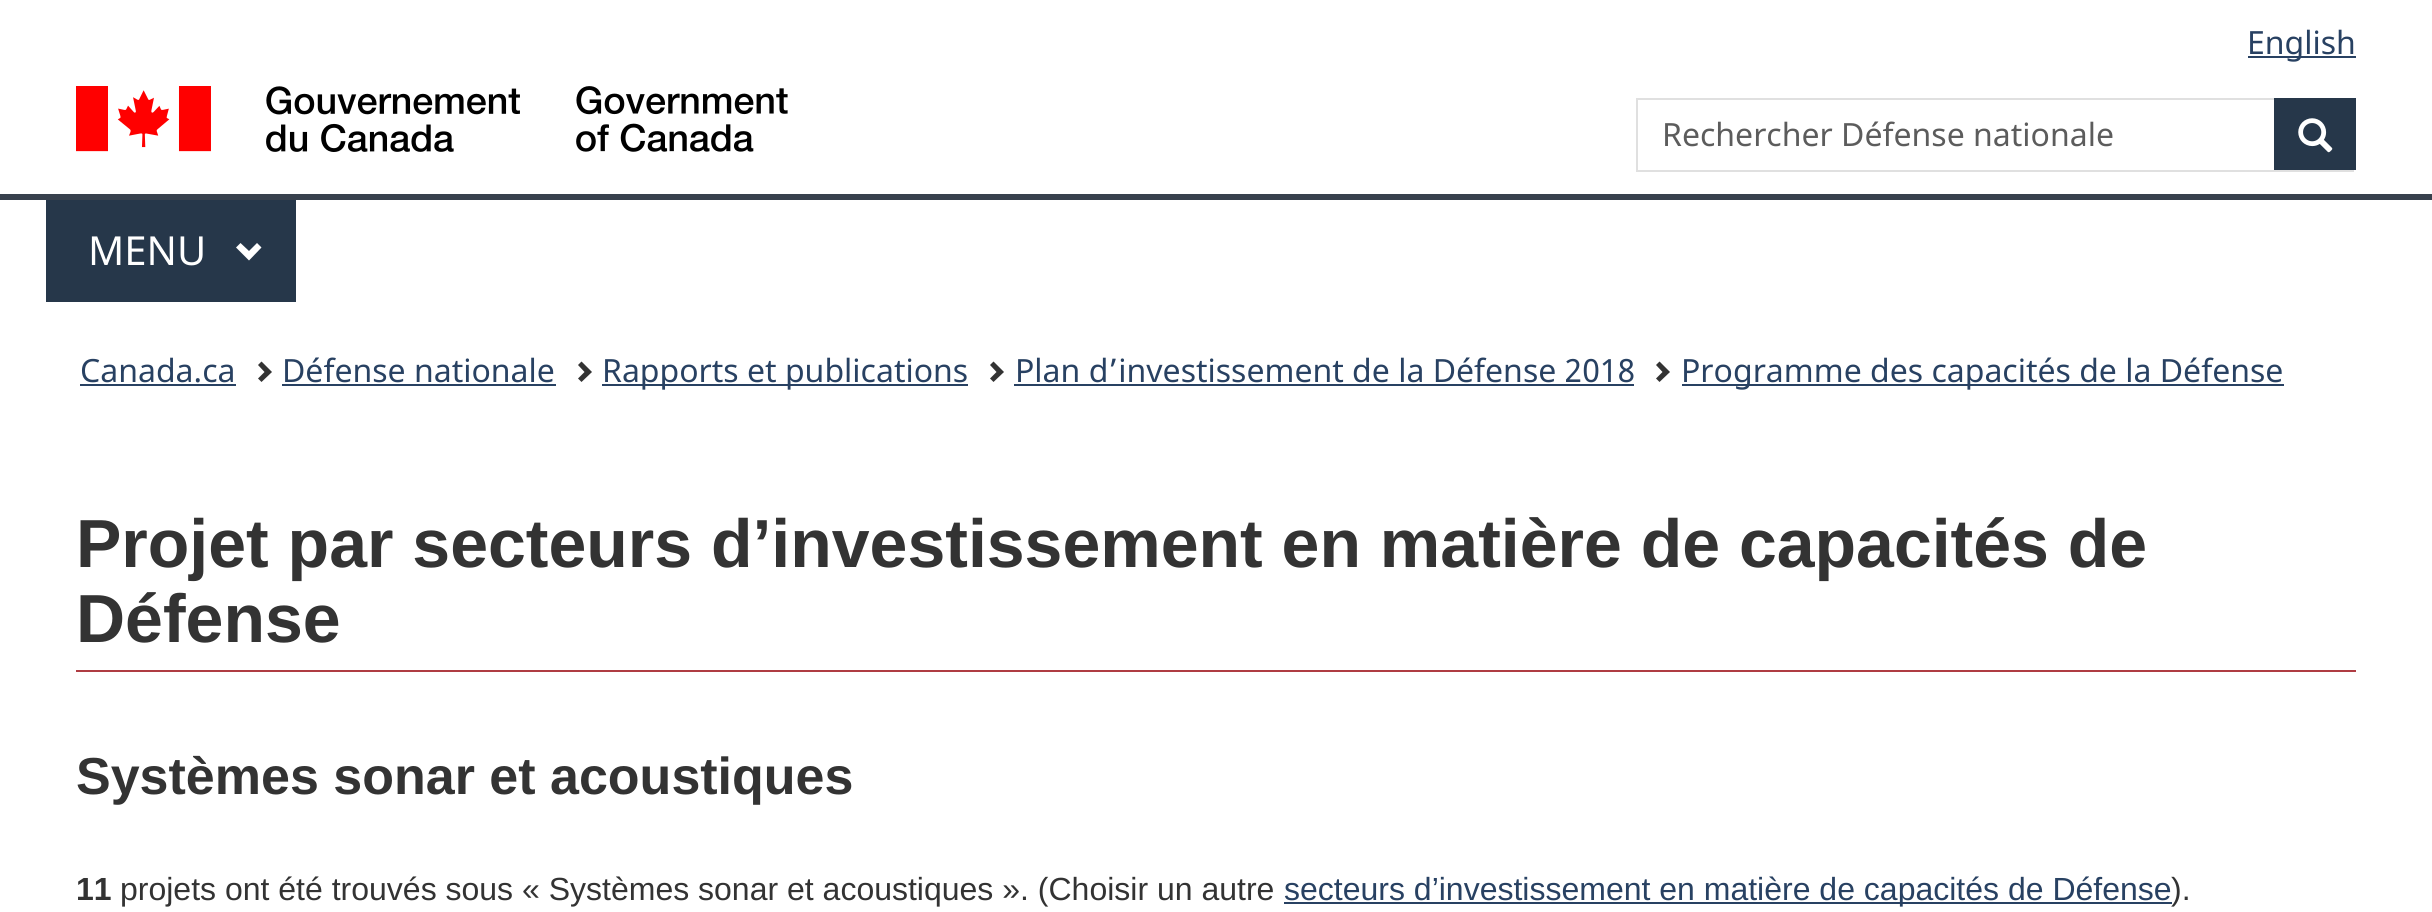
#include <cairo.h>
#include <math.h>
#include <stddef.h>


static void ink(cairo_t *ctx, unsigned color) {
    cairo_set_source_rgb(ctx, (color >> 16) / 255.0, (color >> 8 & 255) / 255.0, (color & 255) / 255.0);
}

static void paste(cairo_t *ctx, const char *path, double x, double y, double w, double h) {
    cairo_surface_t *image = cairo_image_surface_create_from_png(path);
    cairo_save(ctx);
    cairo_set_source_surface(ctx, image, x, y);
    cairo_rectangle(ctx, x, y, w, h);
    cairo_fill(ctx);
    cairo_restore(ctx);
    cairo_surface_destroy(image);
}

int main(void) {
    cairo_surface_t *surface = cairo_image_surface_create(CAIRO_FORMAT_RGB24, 2432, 912);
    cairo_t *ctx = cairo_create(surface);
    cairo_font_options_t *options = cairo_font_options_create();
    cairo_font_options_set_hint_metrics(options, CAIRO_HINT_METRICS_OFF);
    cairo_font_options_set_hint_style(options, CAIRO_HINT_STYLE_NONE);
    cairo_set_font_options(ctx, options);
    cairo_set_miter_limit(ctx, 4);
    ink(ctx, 0xFFFFFF);
    cairo_paint(ctx);
    ink(ctx, 0x284162);
    cairo_rectangle(ctx, 2248, 56, 108, 2);
    cairo_fill(ctx);
    cairo_select_font_face(ctx, "Noto Sans", CAIRO_FONT_SLANT_NORMAL, CAIRO_FONT_WEIGHT_NORMAL);
    cairo_set_font_size(ctx, 32);
    cairo_move_to(ctx, 2247, 54);
    cairo_show_text(ctx, "English");
    paste(ctx, "media/1.png", 76, 86, 712, 66);
    cairo_rectangle(ctx, 1637, 99, 716, 72);
    ink(ctx, 0xE0E0E0);
    cairo_stroke(ctx);
    ink(ctx, 0x5C5C5C);
    cairo_move_to(ctx, 1662, 146);
    cairo_show_text(ctx, "Rechercher Défense nationale");
    ink(ctx, 0x26374A);
    cairo_rectangle(ctx, 2274, 98, 82, 72);
    cairo_fill(ctx);
    paste(ctx, "media/2.png", 2298, 118, 35, 35);
    ink(ctx, 0x38414D);
    cairo_rectangle(ctx, 0, 194, 2432, 6);
    cairo_fill(ctx);
    ink(ctx, 0x26374A);
    cairo_rectangle(ctx, 46, 200, 250, 102);
    cairo_fill(ctx);
    cairo_set_font_size(ctx, 40);
    ink(ctx, 0xFFFFFF);
    cairo_move_to(ctx, 88, 265);
    cairo_show_text(ctx, "MENU");
    cairo_new_path(ctx);
    cairo_move_to(ctx, 261.5, 247.5);
    cairo_line_to(ctx, 249, 260.5);
    cairo_line_to(ctx, 236, 247.5);
    cairo_line_to(ctx, 240.5, 243);
    cairo_line_to(ctx, 249, 251);
    cairo_line_to(ctx, 257, 243);
    cairo_close_path(ctx);
    cairo_fill(ctx);
    cairo_set_font_size(ctx, 32);
    ink(ctx, 0x284162);
    cairo_move_to(ctx, 80, 382);
    cairo_show_text(ctx, "Canada.ca");
    cairo_rectangle(ctx, 80, 384, 156, 2);
    cairo_fill(ctx);
    ink(ctx, 0x333333);
    cairo_new_path(ctx);
    cairo_move_to(ctx, 272, 372);
    cairo_line_to(ctx, 261.5, 382);
    cairo_line_to(ctx, 258, 378.5);
    cairo_line_to(ctx, 264.5, 372);
    cairo_line_to(ctx, 258, 365);
    cairo_line_to(ctx, 261.5, 361.5);
    cairo_close_path(ctx);
    cairo_fill(ctx);
    ink(ctx, 0x284162);
    cairo_move_to(ctx, 282, 382);
    cairo_show_text(ctx, "Défense nationale");
    cairo_rectangle(ctx, 282, 384, 274, 2);
    cairo_fill(ctx);
    ink(ctx, 0x333333);
    cairo_new_path(ctx);
    cairo_move_to(ctx, 592, 372);
    cairo_line_to(ctx, 581.5, 382);
    cairo_line_to(ctx, 578, 378.5);
    cairo_line_to(ctx, 584.5, 372);
    cairo_line_to(ctx, 578, 365);
    cairo_line_to(ctx, 581.5, 361.5);
    cairo_close_path(ctx);
    cairo_fill(ctx);
    ink(ctx, 0x284162);
    cairo_rectangle(ctx, 602, 384, 366, 2);
    cairo_fill(ctx);
    cairo_move_to(ctx, 602, 382);
    cairo_show_text(ctx, "Rapports et publications");
    ink(ctx, 0x333333);
    cairo_new_path(ctx);
    cairo_move_to(ctx, 1004, 372);
    cairo_line_to(ctx, 993.5, 382);
    cairo_line_to(ctx, 990, 378.5);
    cairo_line_to(ctx, 996.5, 372);
    cairo_line_to(ctx, 990, 365);
    cairo_line_to(ctx, 993.5, 361.5);
    cairo_close_path(ctx);
    cairo_fill(ctx);
    ink(ctx, 0x284162);
    cairo_move_to(ctx, 1015, 382);
    cairo_show_text(ctx, "Plan d’investissement de la Défense 2018");
    cairo_rectangle(ctx, 1014, 384, 620, 2);
    cairo_fill(ctx);
    ink(ctx, 0x333333);
    cairo_new_path(ctx);
    cairo_move_to(ctx, 1670, 372);
    cairo_line_to(ctx, 1659.5, 382);
    cairo_line_to(ctx, 1656, 378.5);
    cairo_line_to(ctx, 1662.5, 372);
    cairo_line_to(ctx, 1656, 365);
    cairo_line_to(ctx, 1659.5, 361.5);
    cairo_close_path(ctx);
    cairo_fill(ctx);
    ink(ctx, 0x284162);
    cairo_rectangle(ctx, 1682, 384, 602, 2);
    cairo_fill(ctx);
    cairo_move_to(ctx, 1681, 382);
    cairo_show_text(ctx, "Programme des capacités de la Défense");
    ink(ctx, 0xAF3C43);
    cairo_rectangle(ctx, 76, 670, 2280, 2);
    cairo_fill(ctx);
    cairo_select_font_face(ctx, "Liberation Sans", CAIRO_FONT_SLANT_NORMAL, CAIRO_FONT_WEIGHT_BOLD);
    cairo_set_font_size(ctx, 68);
    ink(ctx, 0x333333);
    cairo_move_to(ctx, 76, 567);
    cairo_show_text(ctx, "Projet par secteurs d’investissement en matière de capacités de");
    cairo_move_to(ctx, 76, 642);
    cairo_show_text(ctx, "Défense");
    cairo_set_font_size(ctx, 52);
    cairo_move_to(ctx, 76, 794);
    cairo_show_text(ctx, "Systèmes sonar et acoustiques");
    cairo_set_font_size(ctx, 32);
    cairo_move_to(ctx, 76, 900);
    cairo_show_text(ctx, "11");
    cairo_select_font_face(ctx, "Liberation Sans", CAIRO_FONT_SLANT_NORMAL, CAIRO_FONT_WEIGHT_NORMAL);
    cairo_move_to(ctx, 120, 900);
    cairo_show_text(ctx, "projets ont été trouvés sous « Systèmes sonar et acoustiques ». (Choisir un autre");
    ink(ctx, 0x284162);
    cairo_rectangle(ctx, 1284, 902, 888, 2);
    cairo_fill(ctx);
    cairo_move_to(ctx, 1284, 900);
    cairo_show_text(ctx, "secteurs d’investissement en matière de capacités de Défense");
    ink(ctx, 0x333333);
    cairo_move_to(ctx, 2171, 900);
    cairo_show_text(ctx, ").");
    cairo_surface_write_to_png(surface, "image.png");
    cairo_font_options_destroy(options);
    cairo_destroy(ctx);
    cairo_surface_destroy(surface);
    return 0;
}
